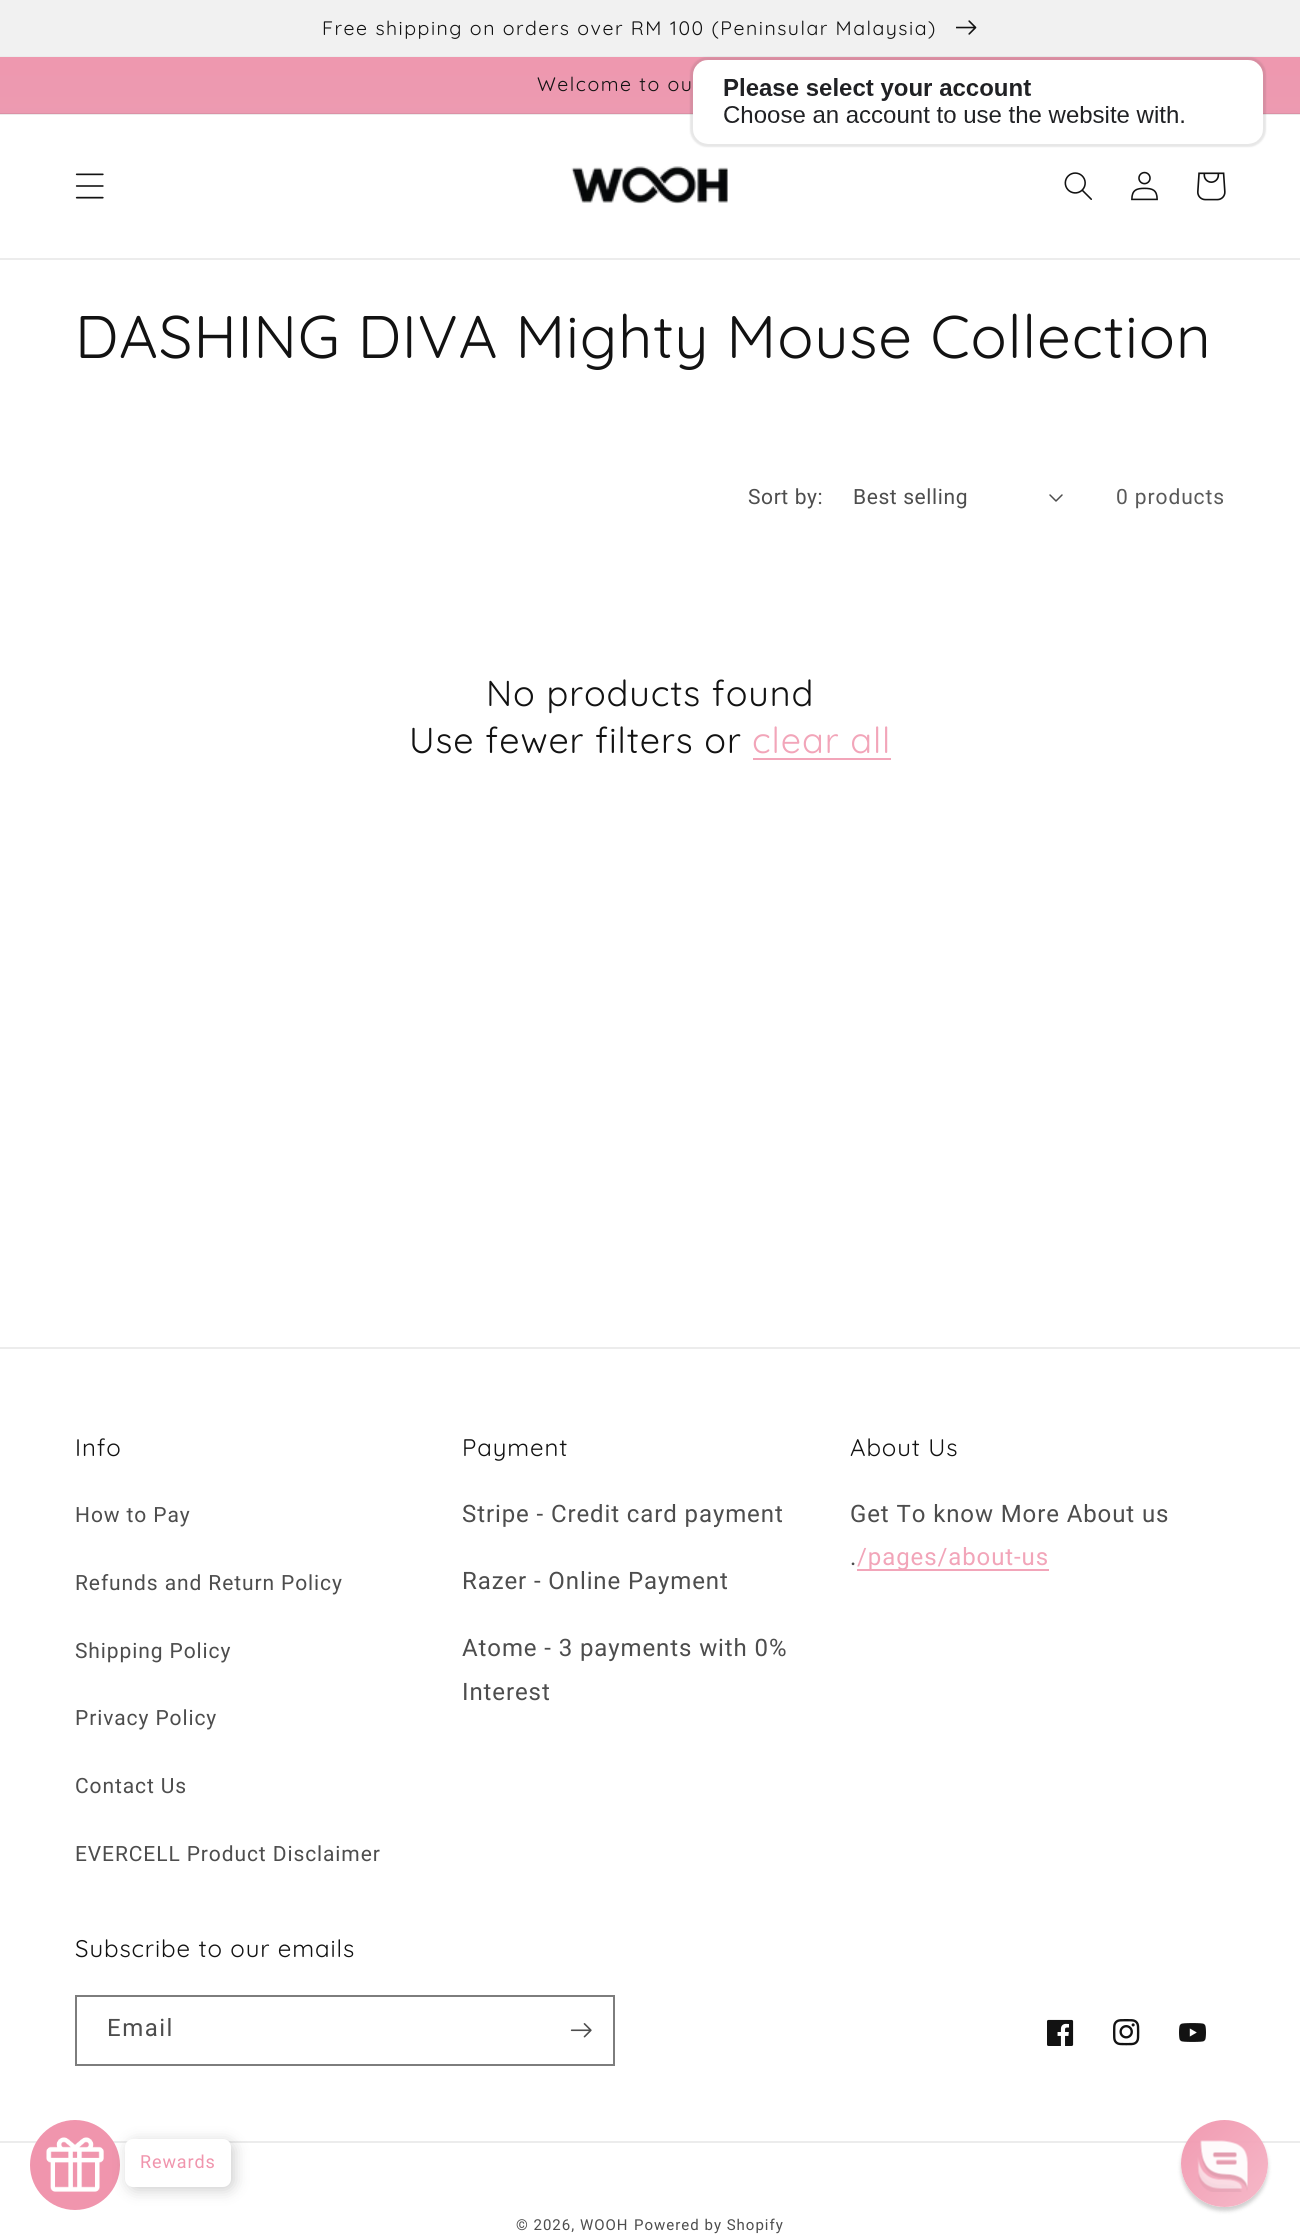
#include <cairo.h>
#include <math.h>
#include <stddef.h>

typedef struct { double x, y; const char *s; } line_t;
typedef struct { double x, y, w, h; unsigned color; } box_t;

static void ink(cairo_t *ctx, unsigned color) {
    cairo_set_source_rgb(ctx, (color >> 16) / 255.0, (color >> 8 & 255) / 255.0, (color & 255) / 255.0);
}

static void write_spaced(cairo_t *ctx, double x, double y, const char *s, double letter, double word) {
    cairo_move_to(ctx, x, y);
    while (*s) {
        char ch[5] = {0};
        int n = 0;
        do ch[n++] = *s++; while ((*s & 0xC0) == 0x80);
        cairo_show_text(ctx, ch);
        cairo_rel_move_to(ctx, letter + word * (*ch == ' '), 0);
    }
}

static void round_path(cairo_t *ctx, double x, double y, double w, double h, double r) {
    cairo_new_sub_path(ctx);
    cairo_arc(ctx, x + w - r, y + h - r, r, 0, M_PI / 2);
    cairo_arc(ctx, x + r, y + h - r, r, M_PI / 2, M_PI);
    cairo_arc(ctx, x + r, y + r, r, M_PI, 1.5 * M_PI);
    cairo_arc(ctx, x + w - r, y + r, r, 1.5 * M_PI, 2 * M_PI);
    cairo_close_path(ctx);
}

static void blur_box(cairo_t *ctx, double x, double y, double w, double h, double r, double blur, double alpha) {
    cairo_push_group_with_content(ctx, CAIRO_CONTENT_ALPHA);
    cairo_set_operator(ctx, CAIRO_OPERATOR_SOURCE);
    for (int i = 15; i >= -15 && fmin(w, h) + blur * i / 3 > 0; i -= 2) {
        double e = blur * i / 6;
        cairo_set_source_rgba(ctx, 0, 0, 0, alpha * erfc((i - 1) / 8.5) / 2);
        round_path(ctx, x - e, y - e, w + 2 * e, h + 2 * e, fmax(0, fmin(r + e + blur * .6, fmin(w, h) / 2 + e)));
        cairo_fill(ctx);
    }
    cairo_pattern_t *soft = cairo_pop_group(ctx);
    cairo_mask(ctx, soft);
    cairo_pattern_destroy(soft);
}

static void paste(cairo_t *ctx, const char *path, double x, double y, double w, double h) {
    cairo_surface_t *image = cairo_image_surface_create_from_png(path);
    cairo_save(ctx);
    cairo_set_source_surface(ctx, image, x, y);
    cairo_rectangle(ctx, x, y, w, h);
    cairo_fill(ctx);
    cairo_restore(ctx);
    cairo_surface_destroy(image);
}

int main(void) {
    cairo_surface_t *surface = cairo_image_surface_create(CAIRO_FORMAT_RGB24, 1300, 2239);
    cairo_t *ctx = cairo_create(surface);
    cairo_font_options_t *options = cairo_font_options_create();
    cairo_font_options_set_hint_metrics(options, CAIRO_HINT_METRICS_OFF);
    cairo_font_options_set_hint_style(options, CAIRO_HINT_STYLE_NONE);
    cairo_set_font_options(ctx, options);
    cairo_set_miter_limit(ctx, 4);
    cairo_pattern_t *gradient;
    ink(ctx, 0xFFFFFF);
    cairo_paint(ctx);
    {
        static const box_t items[] = {
            {0, 114, 1300, 1, 0xECECEC},
            {0, 56, 1300, 1, 0xECECEC},
            {0, 0, 1300, 56, 0xF1F1F1},
        };
        for (size_t i = 0; i < sizeof items / sizeof *items; i++) {
            ink(ctx, items[i].color);
            cairo_rectangle(ctx, items[i].x, items[i].y, items[i].w, items[i].h);
            cairo_fill(ctx);
        }
    }
    cairo_select_font_face(ctx, "Quicksand", CAIRO_FONT_SLANT_NORMAL, CAIRO_FONT_WEIGHT_NORMAL);
    cairo_set_font_size(ctx, 19.5);
    ink(ctx, 0x121212);
    write_spaced(ctx, 322, 35, "Free shipping on orders over RM 100 (Peninsular Malaysia)", 1.5, 0);
    paste(ctx, "media/1.png", 956, 20, 21, 15);
    gradient = cairo_pattern_create_linear(650, 0, 650, 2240);
    cairo_pattern_add_color_stop_rgba(gradient, 0, 0.941, 0.584, 0.678, 1);
    cairo_pattern_add_color_stop_rgba(gradient, 1, 0.659, 1, 0.984, 1);
    cairo_set_source(ctx, gradient);
    cairo_pattern_destroy(gradient);
    cairo_rectangle(ctx, 0, 57, 1300, 56);
    cairo_fill(ctx);
    gradient = cairo_pattern_create_linear(650, 0, 650, 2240);
    cairo_pattern_add_color_stop_rgba(gradient, 0, 0.871, 0.545, 0.631, 1);
    cairo_pattern_add_color_stop_rgba(gradient, 1, 0.612, 0.925, 0.91, 1);
    cairo_set_source(ctx, gradient);
    cairo_pattern_destroy(gradient);
    cairo_rectangle(ctx, 0, 113, 1300, 1);
    cairo_fill(ctx);
    ink(ctx, 0x121212);
    write_spaced(ctx, 537, 91, "Welcome to ou", 1.5, 0);
    paste(ctx, "media/2.png", 689, 56, 578, 92);
    ink(ctx, 0xECECEC);
    cairo_rectangle(ctx, 0, 258, 1300, 2);
    cairo_fill(ctx);
    paste(ctx, "media/3.png", 75, 173, 29, 26);
    paste(ctx, "media/4.png", 571, 166, 157, 38);
    paste(ctx, "media/5.png", 1064, 172, 28, 28);
    paste(ctx, "media/6.png", 1131, 171, 27, 30);
    paste(ctx, "media/7.png", 1197, 172, 29, 29);
    cairo_set_font_size(ctx, 60);
    ink(ctx, 0x121212);
    write_spaced(ctx, 75, 358, "DASHING DIVA Mighty Mouse Collection", 0.9, 0);
    cairo_select_font_face(ctx, "Roboto", CAIRO_FONT_SLANT_NORMAL, CAIRO_FONT_WEIGHT_NORMAL);
    cairo_set_font_size(ctx, 21);
    ink(ctx, 0x4D4D4D);
    write_spaced(ctx, 748, 504, "Sort by:", 0.6, 0);
    write_spaced(ctx, 853, 504, "Best selling", 0.6, 0);
    paste(ctx, "media/8.png", 1049, 494, 14, 8);
    ink(ctx, 0x595959);
    write_spaced(ctx, 1116, 504, "0 products", 0.9, 0);
    cairo_select_font_face(ctx, "Quicksand", CAIRO_FONT_SLANT_NORMAL, CAIRO_FONT_WEIGHT_NORMAL);
    cairo_set_font_size(ctx, 36);
    ink(ctx, 0x121212);
    write_spaced(ctx, 486, 706, "No products found", 0.9, 0);
    write_spaced(ctx, 409, 753, "Use fewer filters or", 0.9, 0);
    ink(ctx, 0xF2A5B9);
    write_spaced(ctx, 752, 753, "clear all", 0.9, 0);
    cairo_rectangle(ctx, 753, 758, 138, 2);
    cairo_fill(ctx);
    ink(ctx, 0xECECEC);
    cairo_rectangle(ctx, 0, 1347, 1300, 2);
    cairo_fill(ctx);
    cairo_set_font_size(ctx, 24);
    ink(ctx, 0x121212);
    write_spaced(ctx, 75, 1456, "Info", 0.9, 0);
    cairo_select_font_face(ctx, "Roboto", CAIRO_FONT_SLANT_NORMAL, CAIRO_FONT_WEIGHT_NORMAL);
    cairo_set_font_size(ctx, 21);
    ink(ctx, 0x4D4D4D);
    {
        static const line_t items[] = {
            {75, 1522, "How to Pay"},
            {75, 1590, "Refunds and Return Policy"},
            {75, 1658, "Shipping Policy"},
            {75, 1725, "Privacy Policy"},
            {75, 1793, "Contact Us"},
            {75, 1861, "EVERCELL Product Disclaimer"},
        };
        for (size_t i = 0; i < sizeof items / sizeof *items; i++) {
            write_spaced(ctx, items[i].x, items[i].y, items[i].s, 0.9, 0);
        }
    }
    cairo_select_font_face(ctx, "Quicksand", CAIRO_FONT_SLANT_NORMAL, CAIRO_FONT_WEIGHT_NORMAL);
    cairo_set_font_size(ctx, 24);
    ink(ctx, 0x121212);
    write_spaced(ctx, 462, 1456, "Payment", 0.9, 0);
    cairo_select_font_face(ctx, "Roboto", CAIRO_FONT_SLANT_NORMAL, CAIRO_FONT_WEIGHT_NORMAL);
    ink(ctx, 0x4D4D4D);
    {
        static const line_t items[] = {
            {462, 1522, "Stripe - Credit card payment"},
            {462, 1589, "Razer - Online Payment"},
            {462, 1656, "Atome - 3 payments with 0%"},
            {462, 1700, "Interest"},
        };
        for (size_t i = 0; i < sizeof items / sizeof *items; i++) {
            write_spaced(ctx, items[i].x, items[i].y, items[i].s, 0.9, 0);
        }
    }
    cairo_select_font_face(ctx, "Quicksand", CAIRO_FONT_SLANT_NORMAL, CAIRO_FONT_WEIGHT_NORMAL);
    ink(ctx, 0x121212);
    write_spaced(ctx, 850, 1456, "About Us", 0.9, 0);
    cairo_select_font_face(ctx, "Roboto", CAIRO_FONT_SLANT_NORMAL, CAIRO_FONT_WEIGHT_NORMAL);
    ink(ctx, 0x4D4D4D);
    write_spaced(ctx, 850, 1522, "Get To know More About us", 0.9, 0);
    write_spaced(ctx, 850, 1565, ".", 0.9, 0);
    ink(ctx, 0xF2A5B9);
    cairo_rectangle(ctx, 857, 1569, 192, 2);
    cairo_fill(ctx);
    write_spaced(ctx, 857, 1565, "/pages/about-us", 0.9, 0);
    cairo_select_font_face(ctx, "Quicksand", CAIRO_FONT_SLANT_NORMAL, CAIRO_FONT_WEIGHT_NORMAL);
    ink(ctx, 0x121212);
    write_spaced(ctx, 75, 1957, "Subscribe to our emails", 0.9, 0);
    cairo_rectangle(ctx, 76, 1996, 538, 69);
    ink(ctx, 0x7D7D7D);
    cairo_stroke(ctx);
    cairo_select_font_face(ctx, "Roboto", CAIRO_FONT_SLANT_NORMAL, CAIRO_FONT_WEIGHT_NORMAL);
    ink(ctx, 0x4D4D4D);
    write_spaced(ctx, 107, 2036, "Email", 1.5, 0);
    paste(ctx, "media/9.png", 570, 2023, 22, 15);
    paste(ctx, "media/10.png", 1047, 2019, 27, 27);
    paste(ctx, "media/11.png", 1113, 2019, 27, 27);
    paste(ctx, "media/12.png", 1179, 2023, 27, 19);
    ink(ctx, 0xECECEC);
    cairo_rectangle(ctx, 0, 2141, 1300, 2);
    cairo_fill(ctx);
    cairo_set_font_size(ctx, 15);
    ink(ctx, 0x4D4D4D);
    write_spaced(ctx, 516, 2230, "© 2026, WOOH", 1, 0);
    write_spaced(ctx, 634, 2230, "Powered by Shopify", 1, 0);
    cairo_save(ctx);
    cairo_set_fill_rule(ctx, CAIRO_FILL_RULE_EVEN_ODD);
    cairo_new_path(ctx);
    cairo_move_to(ctx, 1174, 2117);
    cairo_line_to(ctx, 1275, 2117);
    cairo_line_to(ctx, 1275, 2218);
    cairo_line_to(ctx, 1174, 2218);
    cairo_close_path(ctx);
    cairo_move_to(ctx, 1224.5, 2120);
    cairo_curve_to(ctx, 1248.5, 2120, 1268, 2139.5, 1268, 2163.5);
    cairo_curve_to(ctx, 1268, 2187.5, 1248.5, 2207, 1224.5, 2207);
    cairo_curve_to(ctx, 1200.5, 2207, 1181, 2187.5, 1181, 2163.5);
    cairo_curve_to(ctx, 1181, 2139.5, 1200.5, 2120, 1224.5, 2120);
    cairo_close_path(ctx);
    cairo_clip(ctx);
    ink(ctx, 0x000000);
    blur_box(ctx, 1181, 2124, 87, 87, 43.5, 2, 0.19);
    cairo_restore(ctx);
    gradient = cairo_pattern_create_linear(1181, 2120, 1268, 2207);
    cairo_pattern_add_color_stop_rgba(gradient, 0, 0.941, 0.584, 0.678, 0.95);
    cairo_pattern_add_color_stop_rgba(gradient, 1, 0.961, 0.71, 0.776, 0.95);
    cairo_set_source(ctx, gradient);
    cairo_pattern_destroy(gradient);
    cairo_arc(ctx, 1224.5, 2163.5, 43.5, 0, 2 * M_PI);
    cairo_fill(ctx);
    paste(ctx, "media/13.png", 1197, 2140, 51, 52);
    ink(ctx, 0xF095AD);
    cairo_arc(ctx, 75, 2165, 45, 0, 2 * M_PI);
    cairo_fill(ctx);
    paste(ctx, "media/14.png", 46, 2137, 58, 55);
    ink(ctx, 0x000000);
    blur_box(ctx, 128, 2142, 106, 48, 8, 7.5, 0.2);
    ink(ctx, 0xFFFFFF);
    round_path(ctx, 125, 2139, 106, 48, 8);
    cairo_fill(ctx);
    cairo_set_font_size(ctx, 18);
    ink(ctx, 0xF095AD);
    write_spaced(ctx, 140, 2168, "Rewards", 0.9, 0);
    cairo_surface_write_to_png(surface, "image.png");
    cairo_font_options_destroy(options);
    cairo_destroy(ctx);
    cairo_surface_destroy(surface);
    return 0;
}
